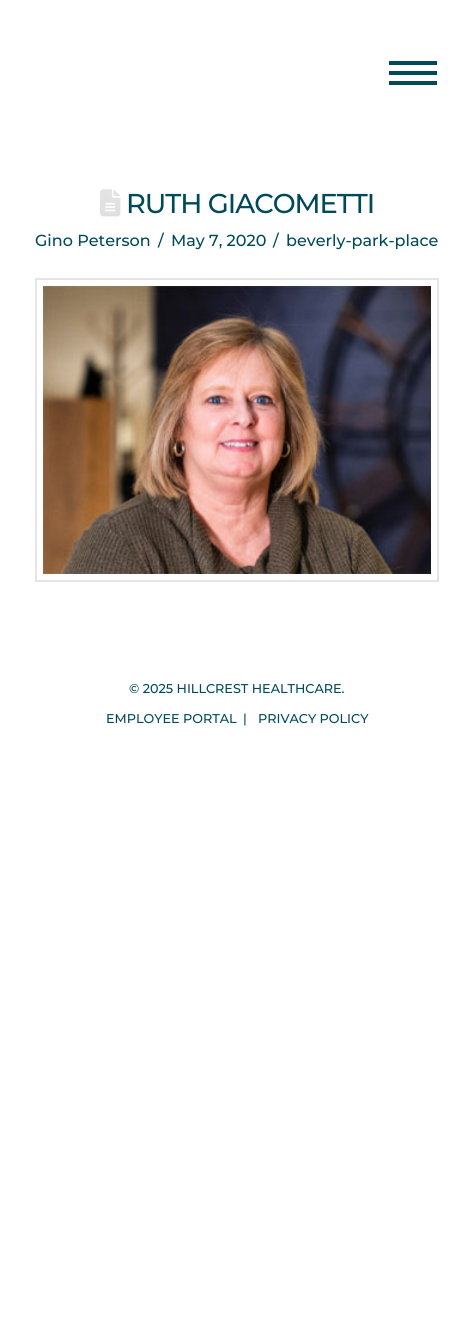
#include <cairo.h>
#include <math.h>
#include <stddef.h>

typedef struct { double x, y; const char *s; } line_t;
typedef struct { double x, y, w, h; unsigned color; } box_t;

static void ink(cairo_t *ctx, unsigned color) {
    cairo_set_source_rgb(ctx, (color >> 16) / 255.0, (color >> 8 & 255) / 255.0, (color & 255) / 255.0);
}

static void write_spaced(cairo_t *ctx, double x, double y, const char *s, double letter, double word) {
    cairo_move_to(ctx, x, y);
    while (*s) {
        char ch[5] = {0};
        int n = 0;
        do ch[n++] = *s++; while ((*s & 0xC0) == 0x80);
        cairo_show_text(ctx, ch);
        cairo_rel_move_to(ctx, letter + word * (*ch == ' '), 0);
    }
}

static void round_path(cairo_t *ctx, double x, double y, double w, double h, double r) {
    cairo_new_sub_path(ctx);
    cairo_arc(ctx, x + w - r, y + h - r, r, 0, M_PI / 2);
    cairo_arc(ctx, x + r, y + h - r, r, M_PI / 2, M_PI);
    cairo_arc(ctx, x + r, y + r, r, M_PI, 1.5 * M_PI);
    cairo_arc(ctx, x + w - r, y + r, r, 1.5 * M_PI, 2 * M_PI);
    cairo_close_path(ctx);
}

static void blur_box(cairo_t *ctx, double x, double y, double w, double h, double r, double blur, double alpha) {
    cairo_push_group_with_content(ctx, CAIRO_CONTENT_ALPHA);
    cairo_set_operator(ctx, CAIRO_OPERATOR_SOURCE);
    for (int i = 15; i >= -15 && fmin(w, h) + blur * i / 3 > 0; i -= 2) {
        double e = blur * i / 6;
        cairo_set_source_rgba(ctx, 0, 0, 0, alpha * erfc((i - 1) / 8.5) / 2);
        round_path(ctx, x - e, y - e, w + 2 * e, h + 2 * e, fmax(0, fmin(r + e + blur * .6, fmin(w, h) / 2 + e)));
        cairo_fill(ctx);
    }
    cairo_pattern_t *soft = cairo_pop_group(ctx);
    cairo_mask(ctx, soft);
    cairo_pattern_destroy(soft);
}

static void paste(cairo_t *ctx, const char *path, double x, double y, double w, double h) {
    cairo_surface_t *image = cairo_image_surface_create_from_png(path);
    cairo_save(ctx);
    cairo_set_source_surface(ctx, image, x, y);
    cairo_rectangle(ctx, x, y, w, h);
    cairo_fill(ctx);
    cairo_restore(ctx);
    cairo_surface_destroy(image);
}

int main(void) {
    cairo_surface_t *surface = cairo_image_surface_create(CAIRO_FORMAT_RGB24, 474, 1336);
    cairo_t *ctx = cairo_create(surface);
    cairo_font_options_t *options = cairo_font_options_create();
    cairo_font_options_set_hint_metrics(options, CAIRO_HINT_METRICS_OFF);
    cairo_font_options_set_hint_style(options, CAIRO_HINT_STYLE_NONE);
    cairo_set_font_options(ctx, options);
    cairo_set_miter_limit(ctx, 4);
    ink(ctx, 0xFFFFFF);
    cairo_paint(ctx);
    paste(ctx, "media/1.png", 100, 189, 21, 28);
    cairo_rectangle(ctx, 36, 279, 402, 302);
    ink(ctx, 0xE5E5E5);
    cairo_stroke(ctx);
    paste(ctx, "media/2.png", 43, 286, 388, 288);
    cairo_save(ctx);
    cairo_set_fill_rule(ctx, CAIRO_FILL_RULE_EVEN_ODD);
    cairo_new_path(ctx);
    cairo_move_to(ctx, 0, 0);
    cairo_line_to(ctx, 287, 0);
    cairo_line_to(ctx, 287, 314);
    cairo_line_to(ctx, 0, 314);
    cairo_close_path(ctx);
    cairo_move_to(ctx, 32, 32);
    cairo_line_to(ctx, 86, 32);
    cairo_line_to(ctx, 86, 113);
    cairo_line_to(ctx, 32, 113);
    cairo_close_path(ctx);
    cairo_clip(ctx);
    ink(ctx, 0xFFFFFF);
    blur_box(ctx, -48, -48, 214, 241, 0, 40, 0.35);
    cairo_restore(ctx);
    cairo_save(ctx);
    cairo_set_fill_rule(ctx, CAIRO_FILL_RULE_EVEN_ODD);
    cairo_new_path(ctx);
    cairo_move_to(ctx, 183, 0);
    cairo_line_to(ctx, 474, 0);
    cairo_line_to(ctx, 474, 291);
    cairo_line_to(ctx, 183, 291);
    cairo_close_path(ctx);
    cairo_move_to(ctx, 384, 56);
    cairo_line_to(ctx, 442, 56);
    cairo_line_to(ctx, 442, 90);
    cairo_line_to(ctx, 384, 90);
    cairo_close_path(ctx);
    cairo_clip(ctx);
    ink(ctx, 0xFFFFFF);
    blur_box(ctx, 304, -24, 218, 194, 0, 40, 0.35);
    cairo_restore(ctx);
    {
        static const box_t items[] = {
            {389, 61, 48, 4, 0x004959},
            {389, 71, 48, 4, 0x004959},
            {389, 81, 48, 4, 0x004959},
        };
        for (size_t i = 0; i < sizeof items / sizeof *items; i++) {
            ink(ctx, items[i].color);
            cairo_rectangle(ctx, items[i].x, items[i].y, items[i].w, items[i].h);
            cairo_fill(ctx);
        }
    }
    cairo_select_font_face(ctx, "Montserrat Medium", CAIRO_FONT_SLANT_NORMAL, CAIRO_FONT_WEIGHT_NORMAL);
    cairo_set_font_size(ctx, 27.25);
    write_spaced(ctx, 126, 213, "RUTH GIACOMETTI", -1, 0);
    cairo_set_font_size(ctx, 16);
    {
        static const line_t items[] = {
            {35, 246, "Gino Peterson"},
            {158, 246, "/"},
            {171, 246, "May 7, 2020"},
            {273, 246, "/"},
            {286, 246, "beverly-park-place"},
        };
        for (size_t i = 0; i < sizeof items / sizeof *items; i++) {
            cairo_move_to(ctx, items[i].x, items[i].y);
            cairo_show_text(ctx, items[i].s);
        }
    }
    cairo_set_font_size(ctx, 12.75);
    {
        static const line_t items[] = {
            {129, 693, "© 2025 HILLCREST HEALTHCARE."},
            {106, 723, "EMPLOYEE PORTAL"},
            {243, 723, "|"},
            {258, 723, "PRIVACY POLICY"},
        };
        for (size_t i = 0; i < sizeof items / sizeof *items; i++) {
            cairo_move_to(ctx, items[i].x, items[i].y);
            cairo_show_text(ctx, items[i].s);
        }
    }
    cairo_surface_write_to_png(surface, "image.png");
    cairo_font_options_destroy(options);
    cairo_destroy(ctx);
    cairo_surface_destroy(surface);
    return 0;
}
